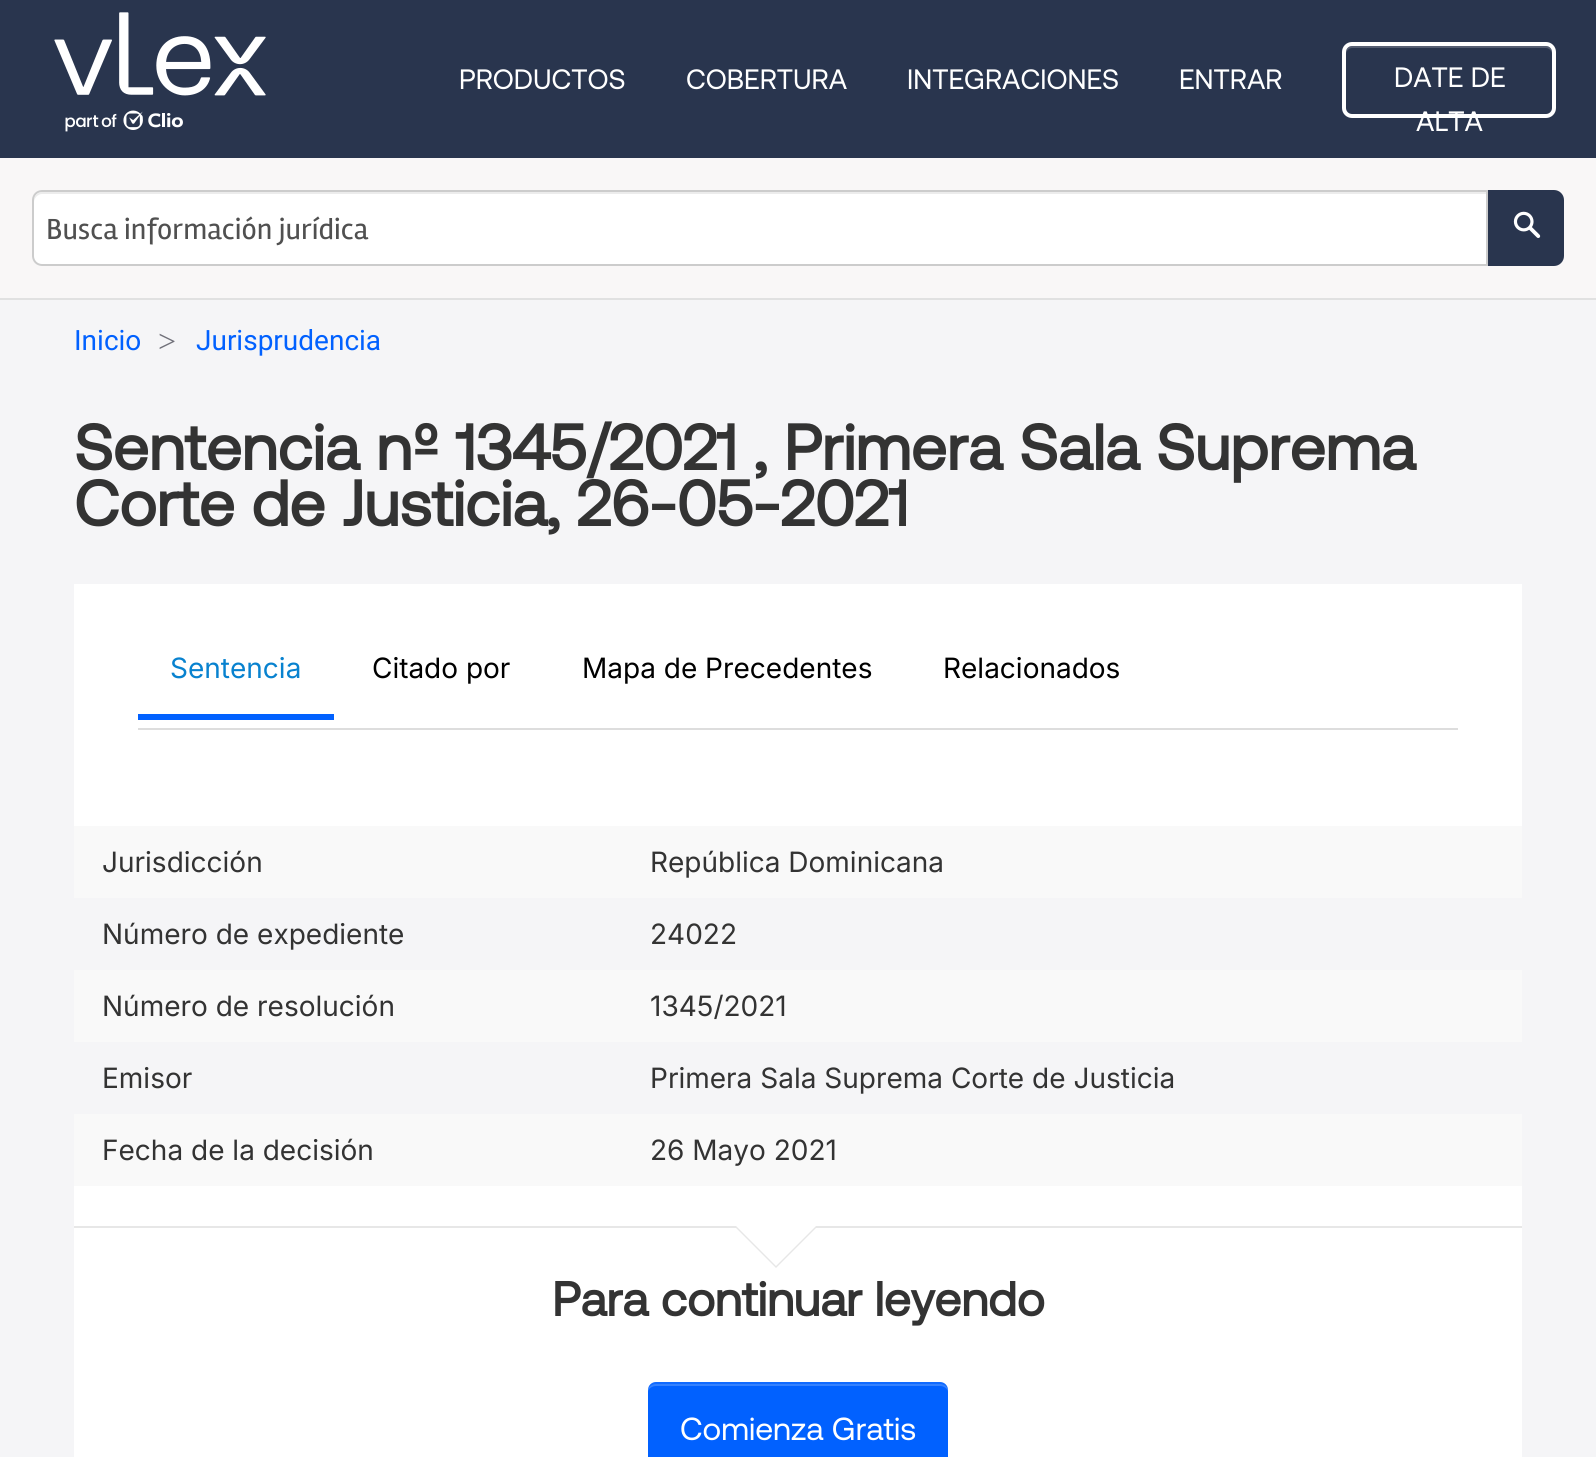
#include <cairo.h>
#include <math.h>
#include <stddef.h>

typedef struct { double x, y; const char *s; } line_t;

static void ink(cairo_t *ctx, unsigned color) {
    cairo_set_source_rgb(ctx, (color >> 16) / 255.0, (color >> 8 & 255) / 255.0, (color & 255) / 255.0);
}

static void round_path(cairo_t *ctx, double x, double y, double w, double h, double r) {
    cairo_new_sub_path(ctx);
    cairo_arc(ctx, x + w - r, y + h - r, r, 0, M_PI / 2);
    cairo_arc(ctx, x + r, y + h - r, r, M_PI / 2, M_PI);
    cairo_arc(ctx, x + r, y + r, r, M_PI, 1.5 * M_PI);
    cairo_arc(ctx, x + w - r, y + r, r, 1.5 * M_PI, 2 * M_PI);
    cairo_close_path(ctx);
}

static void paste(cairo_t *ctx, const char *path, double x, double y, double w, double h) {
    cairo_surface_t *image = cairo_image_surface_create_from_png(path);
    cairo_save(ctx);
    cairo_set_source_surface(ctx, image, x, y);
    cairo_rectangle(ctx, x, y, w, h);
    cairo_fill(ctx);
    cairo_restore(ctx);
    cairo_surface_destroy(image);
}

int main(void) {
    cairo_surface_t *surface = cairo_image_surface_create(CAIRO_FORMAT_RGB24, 1596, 1457);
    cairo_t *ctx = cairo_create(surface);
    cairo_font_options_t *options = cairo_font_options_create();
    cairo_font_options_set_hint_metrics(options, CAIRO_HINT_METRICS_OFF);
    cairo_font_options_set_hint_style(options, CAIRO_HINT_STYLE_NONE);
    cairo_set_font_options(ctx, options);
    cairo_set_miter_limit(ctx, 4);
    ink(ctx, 0xF5F5F7);
    cairo_paint(ctx);
    ink(ctx, 0x29354E);
    cairo_rectangle(ctx, 0, 0, 1596, 158);
    cairo_fill(ctx);
    paste(ctx, "media/1.png", 54, 12, 212, 120);
    cairo_select_font_face(ctx, "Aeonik", CAIRO_FONT_SLANT_NORMAL, CAIRO_FONT_WEIGHT_NORMAL);
    cairo_set_font_size(ctx, 28);
    ink(ctx, 0xFFFFFF);
    {
        static const line_t items[] = {
            {459, 89, "PRODUCTOS"},
            {686, 89, "COBERTURA"},
            {907, 89, "INTEGRACIONES"},
            {1179, 89, "ENTRAR"},
        };
        for (size_t i = 0; i < sizeof items / sizeof *items; i++) {
            cairo_move_to(ctx, items[i].x, items[i].y);
            cairo_show_text(ctx, items[i].s);
        }
    }
    ink(ctx, 0x545D71);
    cairo_new_path(ctx);
    cairo_move_to(ctx, 1352, 48);
    cairo_line_to(ctx, 1546, 48);
    cairo_curve_to(ctx, 1549, 48, 1552, 51, 1552, 54);
    cairo_line_to(ctx, 1552, 52);
    cairo_curve_to(ctx, 1552, 49, 1549, 46, 1546, 46);
    cairo_line_to(ctx, 1352, 46);
    cairo_curve_to(ctx, 1349, 46, 1346, 49, 1346, 52);
    cairo_line_to(ctx, 1346, 54);
    cairo_curve_to(ctx, 1346, 51, 1349, 48, 1352, 48);
    cairo_close_path(ctx);
    cairo_fill(ctx);
    round_path(ctx, 1344, 44, 210, 72, 8);
    ink(ctx, 0xFFFFFF);
    cairo_set_line_width(ctx, 4);
    cairo_stroke(ctx);
    cairo_move_to(ctx, 1394, 87);
    cairo_show_text(ctx, "DATE DE");
    cairo_move_to(ctx, 1416, 131);
    cairo_show_text(ctx, "ALTA");
    ink(ctx, 0xF9F7F7);
    cairo_rectangle(ctx, 0, 158, 1596, 140);
    cairo_fill(ctx);
    ink(ctx, 0xE1E1E1);
    cairo_rectangle(ctx, 0, 298, 1596, 2);
    cairo_fill(ctx);
    ink(ctx, 0xFFFFFF);
    cairo_new_path(ctx);
    cairo_move_to(ctx, 42, 190);
    cairo_line_to(ctx, 1488, 190);
    cairo_line_to(ctx, 1488, 266);
    cairo_line_to(ctx, 42, 266);
    cairo_curve_to(ctx, 36.5, 266, 32, 261.5, 32, 256);
    cairo_line_to(ctx, 32, 200);
    cairo_curve_to(ctx, 32, 194.5, 36.5, 190, 42, 190);
    cairo_close_path(ctx);
    cairo_fill(ctx);
    ink(ctx, 0xECECEC);
    cairo_new_path(ctx);
    cairo_move_to(ctx, 42, 194);
    cairo_line_to(ctx, 1486, 194);
    cairo_line_to(ctx, 1486, 192);
    cairo_line_to(ctx, 42, 192);
    cairo_curve_to(ctx, 38, 192, 34, 196, 34, 200);
    cairo_line_to(ctx, 34, 202);
    cairo_curve_to(ctx, 34, 198, 38, 194, 42, 194);
    cairo_close_path(ctx);
    cairo_fill(ctx);
    cairo_new_path(ctx);
    cairo_move_to(ctx, 42, 191);
    cairo_line_to(ctx, 1487, 191);
    cairo_line_to(ctx, 1487, 265);
    cairo_line_to(ctx, 42, 265);
    cairo_curve_to(ctx, 37, 265, 33, 261, 33, 256);
    cairo_line_to(ctx, 33, 200);
    cairo_curve_to(ctx, 33, 195, 37, 191, 42, 191);
    cairo_close_path(ctx);
    ink(ctx, 0xCCCCCC);
    cairo_set_line_width(ctx, 2);
    cairo_stroke(ctx);
    cairo_select_font_face(ctx, "Rambla", CAIRO_FONT_SLANT_NORMAL, CAIRO_FONT_WEIGHT_NORMAL);
    cairo_set_font_size(ctx, 30);
    ink(ctx, 0x505050);
    cairo_move_to(ctx, 46, 239);
    cairo_show_text(ctx, "Busca información jurídica");
    ink(ctx, 0x29354E);
    cairo_new_path(ctx);
    cairo_move_to(ctx, 1488, 190);
    cairo_line_to(ctx, 1554, 190);
    cairo_curve_to(ctx, 1559.5, 190, 1564, 194.5, 1564, 200);
    cairo_line_to(ctx, 1564, 256);
    cairo_curve_to(ctx, 1564, 261.5, 1559.5, 266, 1554, 266);
    cairo_line_to(ctx, 1488, 266);
    cairo_close_path(ctx);
    cairo_fill(ctx);
    paste(ctx, "media/2.png", 1513, 211, 28, 27);
    cairo_select_font_face(ctx, "Roboto", CAIRO_FONT_SLANT_NORMAL, CAIRO_FONT_WEIGHT_NORMAL);
    cairo_set_font_size(ctx, 28);
    ink(ctx, 0x0161FF);
    cairo_move_to(ctx, 74, 350);
    cairo_show_text(ctx, "Inicio");
    cairo_select_font_face(ctx, "Liberation Serif", CAIRO_FONT_SLANT_NORMAL, CAIRO_FONT_WEIGHT_NORMAL);
    cairo_set_font_size(ctx, 32);
    ink(ctx, 0x71717A);
    cairo_move_to(ctx, 158, 352);
    cairo_show_text(ctx, ">");
    cairo_select_font_face(ctx, "Roboto", CAIRO_FONT_SLANT_NORMAL, CAIRO_FONT_WEIGHT_NORMAL);
    cairo_set_font_size(ctx, 28);
    ink(ctx, 0x0161FF);
    cairo_move_to(ctx, 196, 350);
    cairo_show_text(ctx, "Jurisprudencia");
    cairo_select_font_face(ctx, "Aeonik", CAIRO_FONT_SLANT_NORMAL, CAIRO_FONT_WEIGHT_BOLD);
    cairo_set_font_size(ctx, 64);
    ink(ctx, 0x333333);
    cairo_move_to(ctx, 74, 470);
    cairo_show_text(ctx, "Sentencia nº 1345/2021 , Primera Sala Suprema");
    cairo_move_to(ctx, 74, 526);
    cairo_show_text(ctx, "Corte de Justicia, 26-05-2021");
    ink(ctx, 0xFFFFFF);
    cairo_rectangle(ctx, 74, 584, 1448, 873);
    cairo_fill(ctx);
    ink(ctx, 0xDDDDDD);
    cairo_rectangle(ctx, 138, 728, 1320, 2);
    cairo_fill(ctx);
    cairo_select_font_face(ctx, "Inter", CAIRO_FONT_SLANT_NORMAL, CAIRO_FONT_WEIGHT_NORMAL);
    cairo_set_font_size(ctx, 28);
    ink(ctx, 0x0882CF);
    cairo_move_to(ctx, 170, 678);
    cairo_show_text(ctx, "Sentencia");
    ink(ctx, 0x0161FF);
    cairo_rectangle(ctx, 138, 714, 196, 6);
    cairo_fill(ctx);
    ink(ctx, 0x000000);
    {
        static const line_t items[] = {
            {372, 678, "Citado por"},
            {582, 678, "Mapa de Precedentes"},
            {943, 678, "Relacionados"},
        };
        for (size_t i = 0; i < sizeof items / sizeof *items; i++) {
            cairo_move_to(ctx, items[i].x, items[i].y);
            cairo_show_text(ctx, items[i].s);
        }
    }
    ink(ctx, 0xF9F9F9);
    cairo_rectangle(ctx, 74, 826, 1448, 72);
    cairo_fill(ctx);
    ink(ctx, 0x333333);
    cairo_move_to(ctx, 102, 872);
    cairo_show_text(ctx, "Jurisdicción");
    cairo_move_to(ctx, 650, 872);
    cairo_show_text(ctx, "República Dominicana");
    ink(ctx, 0xF5F5F7);
    cairo_rectangle(ctx, 74, 898, 1448, 72);
    cairo_fill(ctx);
    ink(ctx, 0x333333);
    cairo_move_to(ctx, 102, 944);
    cairo_show_text(ctx, "Número de expediente");
    cairo_move_to(ctx, 650, 944);
    cairo_show_text(ctx, "24022");
    ink(ctx, 0xF9F9F9);
    cairo_rectangle(ctx, 74, 970, 1448, 72);
    cairo_fill(ctx);
    ink(ctx, 0x333333);
    cairo_move_to(ctx, 102, 1016);
    cairo_show_text(ctx, "Número de resolución");
    cairo_move_to(ctx, 650, 1016);
    cairo_show_text(ctx, "1345/2021");
    ink(ctx, 0xF5F5F7);
    cairo_rectangle(ctx, 74, 1042, 1448, 72);
    cairo_fill(ctx);
    ink(ctx, 0x333333);
    cairo_move_to(ctx, 102, 1088);
    cairo_show_text(ctx, "Emisor");
    cairo_move_to(ctx, 650, 1088);
    cairo_show_text(ctx, "Primera Sala Suprema Corte de Justicia");
    ink(ctx, 0xF9F9F9);
    cairo_rectangle(ctx, 74, 1114, 1448, 72);
    cairo_fill(ctx);
    ink(ctx, 0x333333);
    cairo_move_to(ctx, 102, 1160);
    cairo_show_text(ctx, "Fecha de la decisión");
    cairo_move_to(ctx, 650, 1160);
    cairo_show_text(ctx, "26 Mayo 2021");
    ink(ctx, 0xE7E7E7);
    cairo_rectangle(ctx, 74, 1226, 1448, 2);
    cairo_fill(ctx);
    cairo_new_path(ctx);
    cairo_move_to(ctx, 734, 1226);
    cairo_line_to(ctx, 818, 1226);
    cairo_line_to(ctx, 776, 1268);
    cairo_close_path(ctx);
    cairo_fill(ctx);
    ink(ctx, 0xFFFFFF);
    cairo_new_path(ctx);
    cairo_move_to(ctx, 736, 1226);
    cairo_line_to(ctx, 816, 1226);
    cairo_line_to(ctx, 776, 1266);
    cairo_close_path(ctx);
    cairo_fill(ctx);
    cairo_select_font_face(ctx, "Aeonik", CAIRO_FONT_SLANT_NORMAL, CAIRO_FONT_WEIGHT_BOLD);
    cairo_set_font_size(ctx, 48);
    ink(ctx, 0x333333);
    cairo_move_to(ctx, 552, 1316);
    cairo_show_text(ctx, "Para continuar leyendo");
    ink(ctx, 0x0161FF);
    round_path(ctx, 648, 1382, 300, 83, 8);
    cairo_fill(ctx);
    cairo_set_source_rgba(ctx, 1, 1, 1, 0.2);
    cairo_new_path(ctx);
    cairo_move_to(ctx, 656, 1386);
    cairo_line_to(ctx, 940, 1386);
    cairo_curve_to(ctx, 944, 1386, 948, 1389, 948, 1392);
    cairo_line_to(ctx, 948, 1390);
    cairo_curve_to(ctx, 948, 1387, 944, 1384, 940, 1384);
    cairo_line_to(ctx, 656, 1384);
    cairo_curve_to(ctx, 652, 1384, 648, 1387, 648, 1390);
    cairo_line_to(ctx, 648, 1392);
    cairo_curve_to(ctx, 648, 1389, 652, 1386, 656, 1386);
    cairo_close_path(ctx);
    cairo_fill(ctx);
    cairo_set_source_rgba(ctx, 0.659, 0.796, 1, 0.1);
    cairo_new_path(ctx);
    cairo_move_to(ctx, 656, 1382);
    cairo_curve_to(ctx, 652, 1382, 648, 1386, 648, 1390);
    cairo_curve_to(ctx, 648, 1387, 652, 1384, 656, 1384);
    cairo_line_to(ctx, 940, 1384);
    cairo_curve_to(ctx, 944, 1384, 948, 1387, 948, 1390);
    cairo_curve_to(ctx, 948, 1386, 944, 1382, 940, 1382);
    cairo_close_path(ctx);
    cairo_fill(ctx);
    cairo_select_font_face(ctx, "Aeonik", CAIRO_FONT_SLANT_NORMAL, CAIRO_FONT_WEIGHT_NORMAL);
    cairo_set_font_size(ctx, 32);
    ink(ctx, 0xFFFFFF);
    cairo_move_to(ctx, 680, 1440);
    cairo_show_text(ctx, "Comienza Gratis");
    cairo_surface_write_to_png(surface, "image.png");
    cairo_font_options_destroy(options);
    cairo_destroy(ctx);
    cairo_surface_destroy(surface);
    return 0;
}
